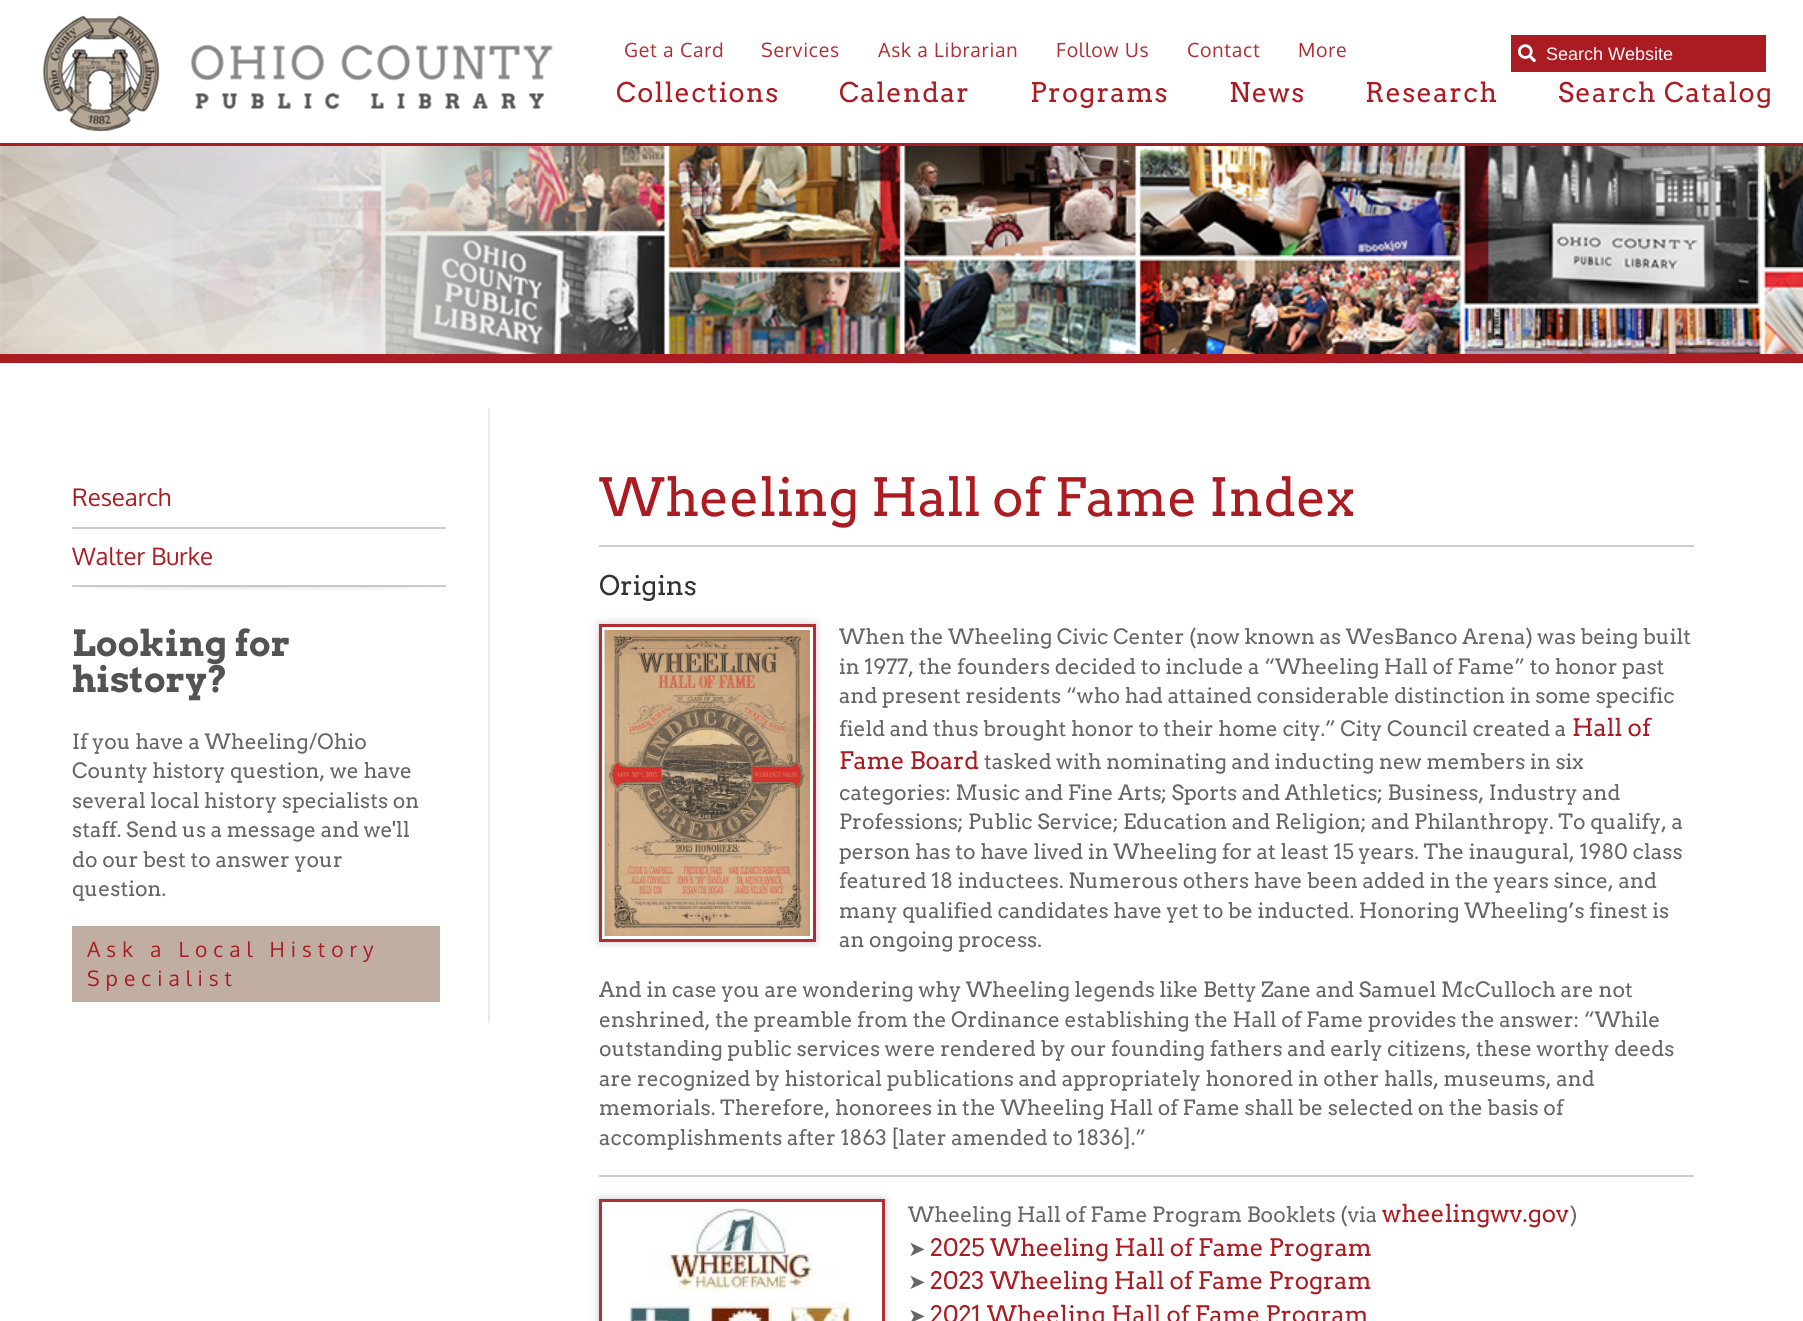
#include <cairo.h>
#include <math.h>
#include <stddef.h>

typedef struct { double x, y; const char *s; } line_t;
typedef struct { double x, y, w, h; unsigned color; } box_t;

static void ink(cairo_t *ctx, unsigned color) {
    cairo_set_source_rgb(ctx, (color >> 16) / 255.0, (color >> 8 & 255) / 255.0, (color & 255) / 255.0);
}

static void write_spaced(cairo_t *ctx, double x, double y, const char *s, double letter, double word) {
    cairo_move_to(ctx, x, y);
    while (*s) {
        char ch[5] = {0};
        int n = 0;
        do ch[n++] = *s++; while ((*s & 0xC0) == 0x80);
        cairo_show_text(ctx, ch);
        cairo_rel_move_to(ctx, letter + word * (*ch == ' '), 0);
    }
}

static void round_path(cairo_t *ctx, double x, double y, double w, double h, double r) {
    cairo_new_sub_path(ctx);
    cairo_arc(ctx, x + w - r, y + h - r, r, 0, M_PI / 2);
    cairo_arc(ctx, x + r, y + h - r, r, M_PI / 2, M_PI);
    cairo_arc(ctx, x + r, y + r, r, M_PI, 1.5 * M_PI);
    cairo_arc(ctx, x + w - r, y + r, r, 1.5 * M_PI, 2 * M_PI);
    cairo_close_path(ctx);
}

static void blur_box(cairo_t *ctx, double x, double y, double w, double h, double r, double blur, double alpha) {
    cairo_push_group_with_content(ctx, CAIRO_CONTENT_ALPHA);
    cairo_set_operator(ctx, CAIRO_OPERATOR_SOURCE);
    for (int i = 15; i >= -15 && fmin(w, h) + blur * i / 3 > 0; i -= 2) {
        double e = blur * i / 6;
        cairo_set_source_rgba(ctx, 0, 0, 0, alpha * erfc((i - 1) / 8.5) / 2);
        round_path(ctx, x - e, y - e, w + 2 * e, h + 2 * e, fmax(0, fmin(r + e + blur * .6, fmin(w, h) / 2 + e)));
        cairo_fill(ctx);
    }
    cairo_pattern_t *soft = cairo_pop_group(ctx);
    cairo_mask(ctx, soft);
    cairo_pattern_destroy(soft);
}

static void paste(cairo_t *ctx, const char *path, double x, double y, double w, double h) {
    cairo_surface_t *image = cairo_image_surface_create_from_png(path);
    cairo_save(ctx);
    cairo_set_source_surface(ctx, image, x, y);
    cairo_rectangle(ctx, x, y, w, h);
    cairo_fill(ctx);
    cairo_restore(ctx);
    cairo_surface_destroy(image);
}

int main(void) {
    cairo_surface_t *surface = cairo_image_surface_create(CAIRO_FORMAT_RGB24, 1803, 1321);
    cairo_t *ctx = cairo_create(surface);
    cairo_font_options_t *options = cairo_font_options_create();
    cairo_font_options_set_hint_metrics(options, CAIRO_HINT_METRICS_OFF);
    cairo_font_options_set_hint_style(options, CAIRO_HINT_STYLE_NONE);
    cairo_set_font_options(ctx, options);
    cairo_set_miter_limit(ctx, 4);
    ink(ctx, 0xFFFFFF);
    cairo_paint(ctx);
    ink(ctx, 0xAB1B22);
    cairo_rectangle(ctx, 0, 143, 1803, 3);
    cairo_fill(ctx);
    paste(ctx, "media/1.png", 43, 15, 510, 117);
    cairo_select_font_face(ctx, "Oxygen", CAIRO_FONT_SLANT_NORMAL, CAIRO_FONT_WEIGHT_NORMAL);
    cairo_set_font_size(ctx, 19.5);
    ink(ctx, 0xB12E34);
    {
        static const line_t items[] = {
            {624, 57, "Get a Card"},
            {761, 57, "Services"},
            {878, 57, "Ask a Librarian"},
            {1056, 57, "Follow Us"},
            {1187, 57, "Contact"},
            {1298, 57, "More"},
        };
        for (size_t i = 0; i < sizeof items / sizeof *items; i++) {
            write_spaced(ctx, items[i].x, items[i].y, items[i].s, 0.75, 0);
        }
    }
    cairo_select_font_face(ctx, "Arvo", CAIRO_FONT_SLANT_NORMAL, CAIRO_FONT_WEIGHT_NORMAL);
    cairo_set_font_size(ctx, 27);
    ink(ctx, 0xAB1B22);
    {
        static const line_t items[] = {
            {616, 102, "Collections"},
            {839, 102, "Calendar"},
            {1030, 102, "Programs"},
            {1229, 102, "News"},
            {1365, 102, "Research"},
            {1558, 102, "Search Catalog"},
        };
        for (size_t i = 0; i < sizeof items / sizeof *items; i++) {
            write_spaced(ctx, items[i].x, items[i].y, items[i].s, 1.25, 0);
        }
    }
    cairo_rectangle(ctx, 1511, 35, 255, 37);
    cairo_fill(ctx);
    paste(ctx, "media/2.png", 1518, 44, 18, 19);
    cairo_select_font_face(ctx, "Liberation Sans", CAIRO_FONT_SLANT_NORMAL, CAIRO_FONT_WEIGHT_NORMAL);
    cairo_set_font_size(ctx, 18);
    ink(ctx, 0xFFFFFF);
    cairo_move_to(ctx, 1546, 60);
    cairo_show_text(ctx, "Search Website");
    paste(ctx, "media/3.png", 0, 146, 1803, 208);
    {
        static const box_t items[] = {
            {0, 354, 1803, 9, 0xAB1B22},
            {488, 408, 2, 615, 0xEBEBEB},
            {72, 527, 374, 2, 0xCCCCCC},
        };
        for (size_t i = 0; i < sizeof items / sizeof *items; i++) {
            ink(ctx, items[i].color);
            cairo_rectangle(ctx, items[i].x, items[i].y, items[i].w, items[i].h);
            cairo_fill(ctx);
        }
    }
    cairo_select_font_face(ctx, "Oxygen", CAIRO_FONT_SLANT_NORMAL, CAIRO_FONT_WEIGHT_NORMAL);
    cairo_set_font_size(ctx, 24);
    ink(ctx, 0xAB1B22);
    cairo_move_to(ctx, 72, 506);
    cairo_show_text(ctx, "Research");
    ink(ctx, 0xCCCCCC);
    cairo_rectangle(ctx, 72, 585, 374, 2);
    cairo_fill(ctx);
    ink(ctx, 0xAB1B22);
    cairo_move_to(ctx, 72, 565);
    cairo_show_text(ctx, "Walter Burke");
    paste(ctx, "media/4.png", 77, 586, 362, 5);
    cairo_select_font_face(ctx, "Arvo", CAIRO_FONT_SLANT_NORMAL, CAIRO_FONT_WEIGHT_BOLD);
    cairo_set_font_size(ctx, 36);
    ink(ctx, 0x535353);
    cairo_move_to(ctx, 72, 656);
    cairo_show_text(ctx, "Looking for");
    cairo_move_to(ctx, 72, 692);
    cairo_show_text(ctx, "history?");
    cairo_select_font_face(ctx, "Arvo", CAIRO_FONT_SLANT_NORMAL, CAIRO_FONT_WEIGHT_NORMAL);
    cairo_set_font_size(ctx, 21);
    ink(ctx, 0x666666);
    {
        static const line_t items[] = {
            {72, 749, "If you have a Wheeling/Ohio"},
            {72, 778, "County history question, we have"},
            {72, 808, "several local history specialists on"},
            {72, 837, "staff. Send us a message and we'll"},
            {72, 867, "do our best to answer your"},
            {72, 896, "question."},
        };
        for (size_t i = 0; i < sizeof items / sizeof *items; i++) {
            cairo_move_to(ctx, items[i].x, items[i].y);
            cairo_show_text(ctx, items[i].s);
        }
    }
    ink(ctx, 0xC1AEA3);
    cairo_rectangle(ctx, 72, 926, 368, 76);
    cairo_fill(ctx);
    cairo_select_font_face(ctx, "Oxygen", CAIRO_FONT_SLANT_NORMAL, CAIRO_FONT_WEIGHT_NORMAL);
    ink(ctx, 0xAB1B22);
    write_spaced(ctx, 87, 957, "Ask a Local History", 6, 0);
    write_spaced(ctx, 87, 986, "Specialist", 6, 0);
    cairo_select_font_face(ctx, "Arvo", CAIRO_FONT_SLANT_NORMAL, CAIRO_FONT_WEIGHT_NORMAL);
    cairo_set_font_size(ctx, 52.5);
    cairo_move_to(ctx, 599, 516);
    cairo_show_text(ctx, "Wheeling Hall of Fame Index");
    ink(ctx, 0xCCCCCC);
    cairo_rectangle(ctx, 599, 545, 1095, 2);
    cairo_fill(ctx);
    cairo_set_font_size(ctx, 27);
    ink(ctx, 0x333333);
    cairo_move_to(ctx, 599, 595);
    cairo_show_text(ctx, "Origins");
    cairo_save(ctx);
    cairo_set_fill_rule(ctx, CAIRO_FILL_RULE_EVEN_ODD);
    cairo_new_path(ctx);
    cairo_move_to(ctx, 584, 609);
    cairo_line_to(ctx, 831, 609);
    cairo_line_to(ctx, 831, 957);
    cairo_line_to(ctx, 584, 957);
    cairo_close_path(ctx);
    cairo_move_to(ctx, 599, 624);
    cairo_line_to(ctx, 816, 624);
    cairo_line_to(ctx, 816, 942);
    cairo_line_to(ctx, 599, 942);
    cairo_close_path(ctx);
    cairo_clip(ctx);
    ink(ctx, 0xCCCCCC);
    blur_box(ctx, 599, 624, 217, 318, 0, 4.5, 1);
    cairo_restore(ctx);
    cairo_rectangle(ctx, 600.5, 625.5, 214, 315);
    ink(ctx, 0xB12E34);
    cairo_set_line_width(ctx, 3);
    cairo_stroke(ctx);
    paste(ctx, "media/5.png", 604, 630, 206, 306);
    cairo_set_font_size(ctx, 21);
    ink(ctx, 0x666666);
    {
        static const line_t items[] = {
            {839, 644, "When the Wheeling Civic Center (now known as WesBanco Arena) was being built"},
            {839, 674, "in 1977, the founders decided to include a “Wheeling Hall of Fame” to honor past"},
            {839, 703, "and present residents “who had attained considerable distinction in some specific"},
            {839, 736, "field and thus brought honor to their home city.” City Council created a"},
        };
        for (size_t i = 0; i < sizeof items / sizeof *items; i++) {
            cairo_move_to(ctx, items[i].x, items[i].y);
            cairo_show_text(ctx, items[i].s);
        }
    }
    cairo_set_font_size(ctx, 24);
    ink(ctx, 0xAB1B22);
    cairo_move_to(ctx, 1572, 736);
    cairo_show_text(ctx, "Hall of");
    cairo_move_to(ctx, 839, 769);
    cairo_show_text(ctx, "Fame Board");
    cairo_set_font_size(ctx, 21);
    ink(ctx, 0x666666);
    {
        static const line_t items[] = {
            {984, 769, "tasked with nominating and inducting new members in six"},
            {839, 800, "categories: Music and Fine Arts; Sports and Athletics; Business, Industry and"},
            {839, 829, "Professions; Public Service; Education and Religion; and Philanthropy. To qualify, a"},
            {839, 859, "person has to have lived in Wheeling for at least 15 years. The inaugural, 1980 class"},
            {839, 888, "featured 18 inductees. Numerous others have been added in the years since, and"},
            {839, 918, "many qualified candidates have yet to be inducted. Honoring Wheeling’s finest is"},
            {839, 947, "an ongoing process."},
            {599, 997, "And in case you are wondering why Wheeling legends like Betty Zane and Samuel McCulloch are not"},
            {599, 1027, "enshrined, the preamble from the Ordinance establishing the Hall of Fame provides the answer: “While"},
            {599, 1056, "outstanding public services were rendered by our founding fathers and early citizens, these worthy deeds"},
            {599, 1086, "are recognized by historical publications and appropriately honored in other halls, museums, and"},
            {599, 1115, "memorials. Therefore, honorees in the Wheeling Hall of Fame shall be selected on the basis of"},
            {599, 1145, "accomplishments after 1863 [later amended to 1836].”"},
        };
        for (size_t i = 0; i < sizeof items / sizeof *items; i++) {
            cairo_move_to(ctx, items[i].x, items[i].y);
            cairo_show_text(ctx, items[i].s);
        }
    }
    ink(ctx, 0xCCCCCC);
    cairo_rectangle(ctx, 599, 1175, 1095, 2);
    cairo_fill(ctx);
    cairo_save(ctx);
    cairo_set_fill_rule(ctx, CAIRO_FILL_RULE_EVEN_ODD);
    cairo_new_path(ctx);
    cairo_move_to(ctx, 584, 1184);
    cairo_line_to(ctx, 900, 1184);
    cairo_line_to(ctx, 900, 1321);
    cairo_line_to(ctx, 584, 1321);
    cairo_close_path(ctx);
    cairo_move_to(ctx, 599, 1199);
    cairo_line_to(ctx, 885, 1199);
    cairo_line_to(ctx, 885, 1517);
    cairo_line_to(ctx, 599, 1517);
    cairo_close_path(ctx);
    cairo_clip(ctx);
    ink(ctx, 0xCCCCCC);
    blur_box(ctx, 599, 1199, 286, 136, 0, 4.5, 1);
    cairo_restore(ctx);
    cairo_rectangle(ctx, 600.5, 1200.5, 283, 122);
    ink(ctx, 0xB12E34);
    cairo_stroke(ctx);
    paste(ctx, "media/6.png", 628, 1204, 224, 117);
    ink(ctx, 0x666666);
    cairo_move_to(ctx, 908, 1222);
    cairo_show_text(ctx, "Wheeling Hall of Fame Program Booklets (via");
    cairo_set_font_size(ctx, 24);
    ink(ctx, 0xAB1B22);
    cairo_move_to(ctx, 1382, 1222);
    cairo_show_text(ctx, "wheelingwv.gov");
    cairo_set_font_size(ctx, 21);
    ink(ctx, 0x666666);
    cairo_move_to(ctx, 1570, 1222);
    cairo_show_text(ctx, ")");
    cairo_select_font_face(ctx, "DejaVu Sans", CAIRO_FONT_SLANT_NORMAL, CAIRO_FONT_WEIGHT_NORMAL);
    cairo_move_to(ctx, 908, 1256);
    cairo_show_text(ctx, "➤");
    cairo_select_font_face(ctx, "Arvo", CAIRO_FONT_SLANT_NORMAL, CAIRO_FONT_WEIGHT_NORMAL);
    cairo_set_font_size(ctx, 24);
    ink(ctx, 0xAB1B22);
    cairo_move_to(ctx, 930, 1256);
    cairo_show_text(ctx, "2025 Wheeling Hall of Fame Program");
    cairo_select_font_face(ctx, "DejaVu Sans", CAIRO_FONT_SLANT_NORMAL, CAIRO_FONT_WEIGHT_NORMAL);
    cairo_set_font_size(ctx, 21);
    ink(ctx, 0x666666);
    cairo_move_to(ctx, 908, 1289);
    cairo_show_text(ctx, "➤");
    cairo_select_font_face(ctx, "Arvo", CAIRO_FONT_SLANT_NORMAL, CAIRO_FONT_WEIGHT_NORMAL);
    cairo_set_font_size(ctx, 24);
    ink(ctx, 0xAB1B22);
    cairo_move_to(ctx, 930, 1289);
    cairo_show_text(ctx, "2023 Wheeling Hall of Fame Program");
    cairo_select_font_face(ctx, "DejaVu Sans", CAIRO_FONT_SLANT_NORMAL, CAIRO_FONT_WEIGHT_NORMAL);
    cairo_set_font_size(ctx, 21);
    ink(ctx, 0x666666);
    cairo_move_to(ctx, 908, 1323);
    cairo_show_text(ctx, "➤");
    cairo_select_font_face(ctx, "Arvo", CAIRO_FONT_SLANT_NORMAL, CAIRO_FONT_WEIGHT_NORMAL);
    cairo_set_font_size(ctx, 24);
    ink(ctx, 0xAB1B22);
    cairo_move_to(ctx, 930, 1323);
    cairo_show_text(ctx, "2021 Wheeling Hall of Fame Program");
    cairo_surface_write_to_png(surface, "image.png");
    cairo_font_options_destroy(options);
    cairo_destroy(ctx);
    cairo_surface_destroy(surface);
    return 0;
}
